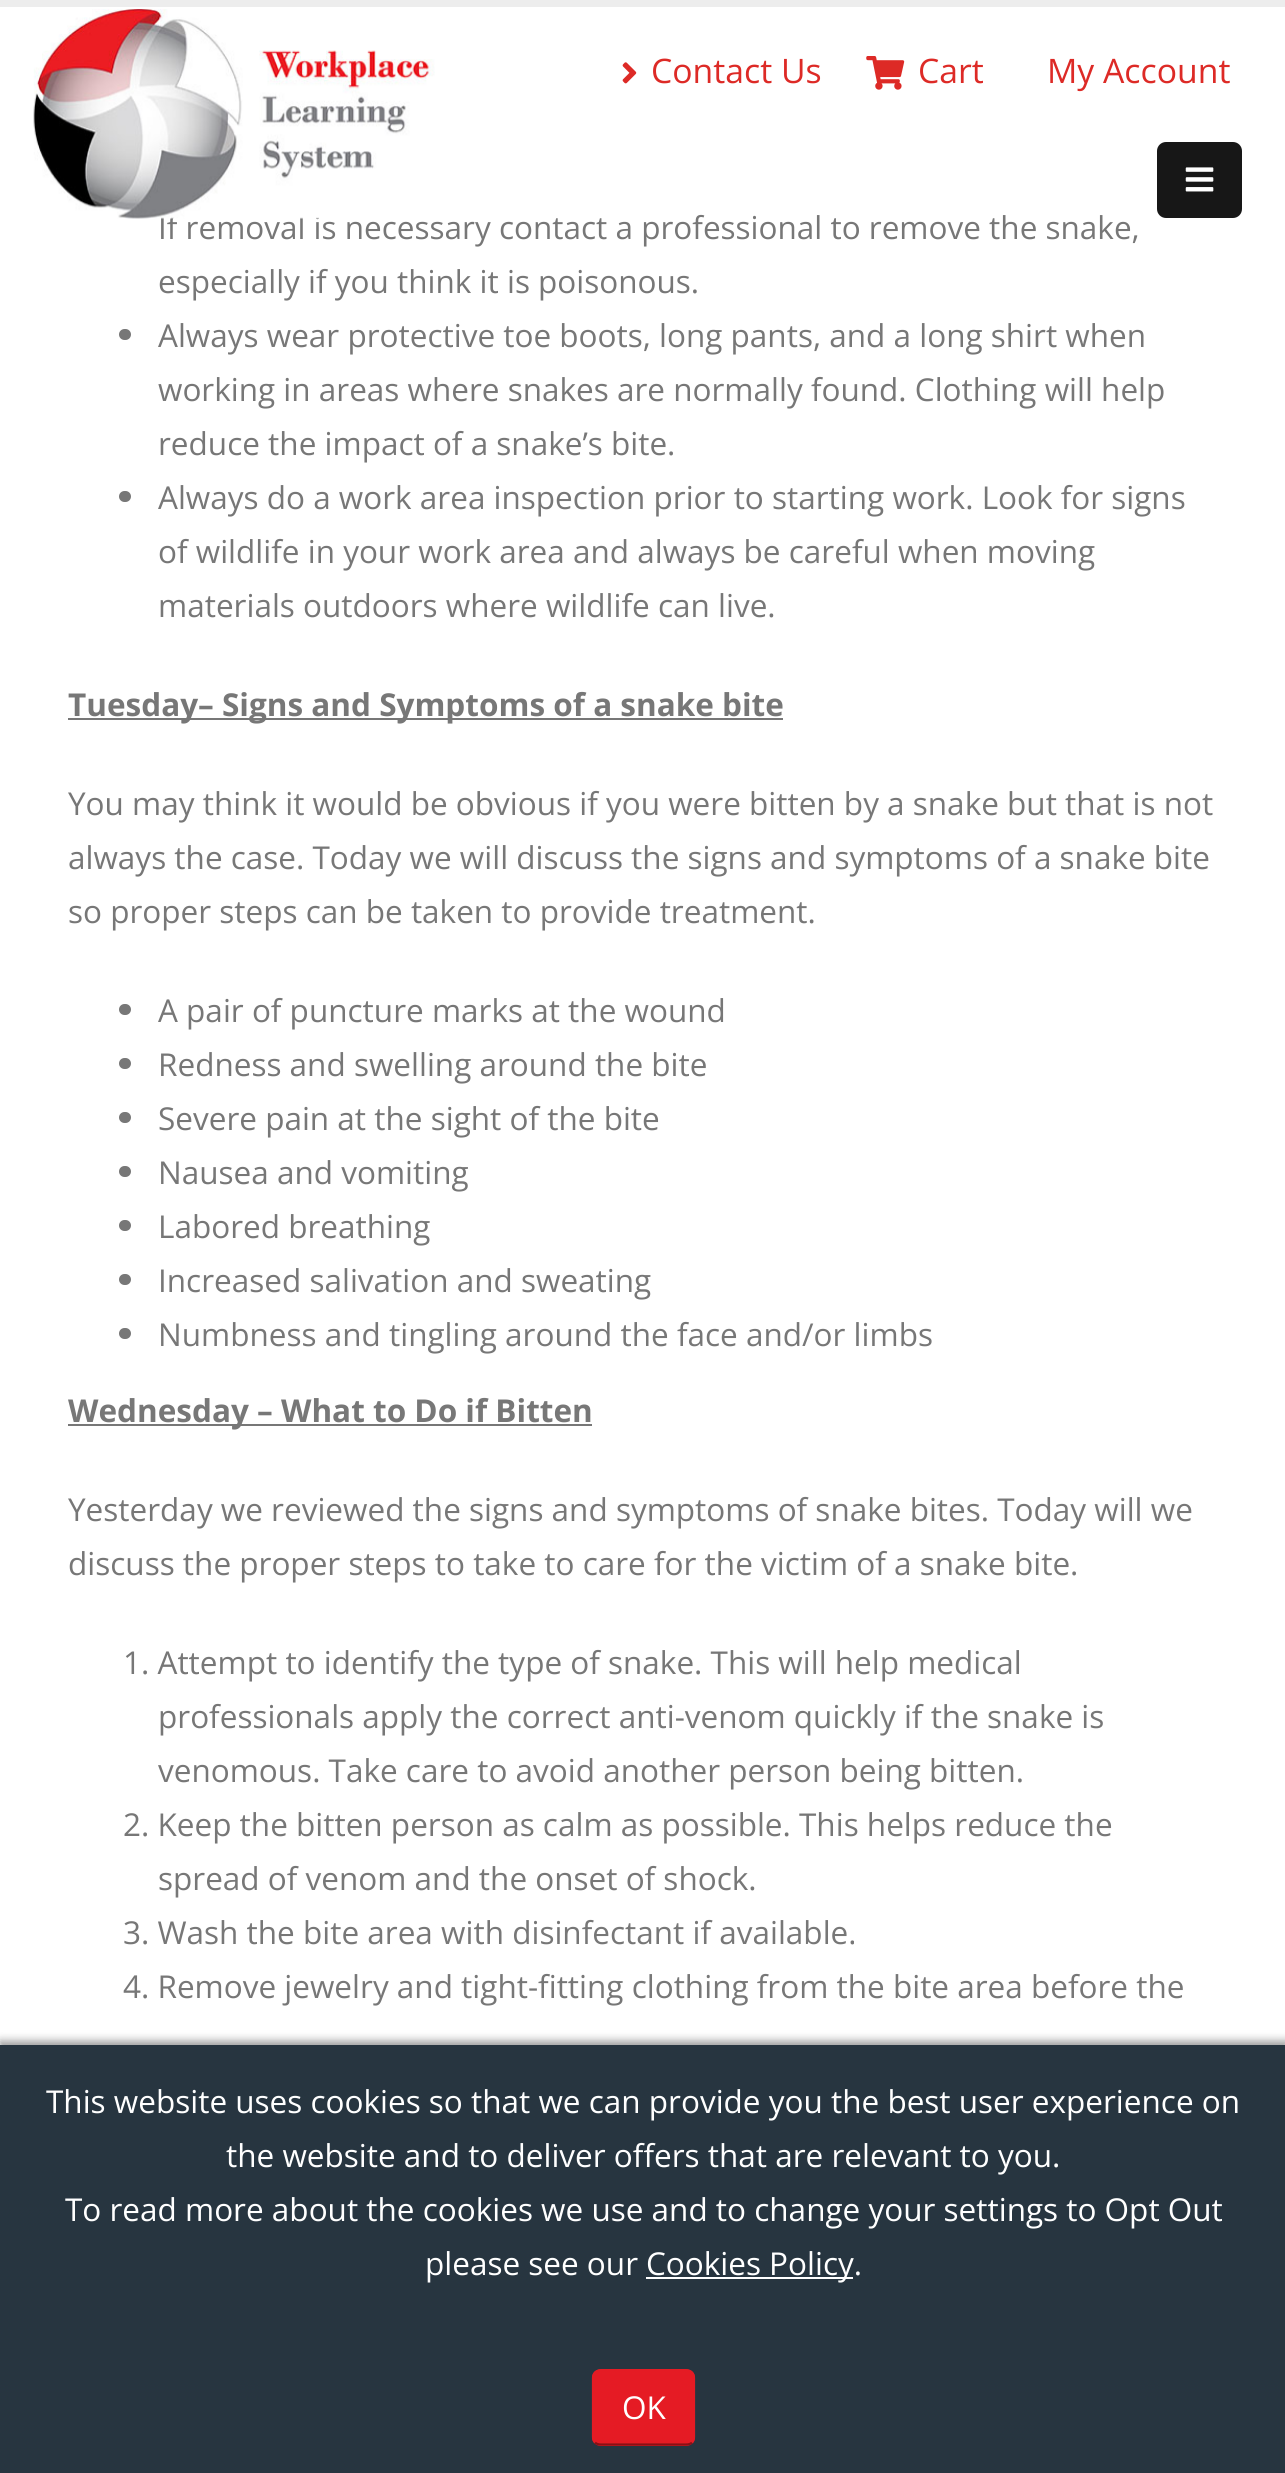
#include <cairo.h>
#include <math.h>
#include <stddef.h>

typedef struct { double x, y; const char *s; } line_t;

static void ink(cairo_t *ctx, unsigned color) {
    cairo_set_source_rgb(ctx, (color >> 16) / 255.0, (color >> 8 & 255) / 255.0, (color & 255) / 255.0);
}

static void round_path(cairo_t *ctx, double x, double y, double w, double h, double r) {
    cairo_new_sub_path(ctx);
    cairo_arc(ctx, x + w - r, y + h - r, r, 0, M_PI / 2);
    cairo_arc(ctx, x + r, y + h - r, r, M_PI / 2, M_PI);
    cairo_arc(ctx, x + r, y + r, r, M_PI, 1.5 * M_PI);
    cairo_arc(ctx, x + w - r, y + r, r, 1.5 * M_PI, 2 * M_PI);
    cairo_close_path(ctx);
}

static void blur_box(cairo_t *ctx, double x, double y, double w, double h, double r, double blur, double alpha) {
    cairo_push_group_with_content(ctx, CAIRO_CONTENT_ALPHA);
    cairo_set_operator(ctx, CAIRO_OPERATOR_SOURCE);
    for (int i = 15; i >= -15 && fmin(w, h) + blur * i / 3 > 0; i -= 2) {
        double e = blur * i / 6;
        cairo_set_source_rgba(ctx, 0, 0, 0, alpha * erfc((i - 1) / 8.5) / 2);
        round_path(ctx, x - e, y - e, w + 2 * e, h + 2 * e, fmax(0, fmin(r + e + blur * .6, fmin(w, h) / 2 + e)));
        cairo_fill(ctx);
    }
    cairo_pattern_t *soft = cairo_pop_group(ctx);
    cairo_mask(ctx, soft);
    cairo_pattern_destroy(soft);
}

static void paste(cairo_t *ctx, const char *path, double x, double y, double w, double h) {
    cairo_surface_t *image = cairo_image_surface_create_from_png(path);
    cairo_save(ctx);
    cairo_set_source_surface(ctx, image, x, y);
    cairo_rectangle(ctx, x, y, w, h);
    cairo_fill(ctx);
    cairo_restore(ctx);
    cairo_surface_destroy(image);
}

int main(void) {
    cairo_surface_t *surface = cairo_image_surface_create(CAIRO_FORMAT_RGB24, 1285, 2473);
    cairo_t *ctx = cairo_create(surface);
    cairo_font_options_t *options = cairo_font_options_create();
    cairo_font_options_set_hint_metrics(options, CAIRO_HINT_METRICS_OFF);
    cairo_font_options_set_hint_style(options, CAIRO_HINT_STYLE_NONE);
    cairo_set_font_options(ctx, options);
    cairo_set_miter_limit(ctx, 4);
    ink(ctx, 0xFFFFFF);
    cairo_paint(ctx);
    ink(ctx, 0xEDEDED);
    cairo_rectangle(ctx, 0, 0, 1285, 7);
    cairo_fill(ctx);
    cairo_select_font_face(ctx, "Open Sans", CAIRO_FONT_SLANT_NORMAL, CAIRO_FONT_WEIGHT_NORMAL);
    cairo_set_font_size(ctx, 31.5);
    ink(ctx, 0x777777);
    cairo_move_to(ctx, 158, 239);
    cairo_show_text(ctx, "If removal is necessary contact a professional to remove the snake,");
    paste(ctx, "media/1.png", 33, 9, 402, 210);
    paste(ctx, "media/2.png", 622, 62, 15, 22);
    cairo_set_font_size(ctx, 33.75);
    ink(ctx, 0xDD2A26);
    cairo_move_to(ctx, 651, 83);
    cairo_show_text(ctx, "Contact Us");
    paste(ctx, "media/3.png", 866, 56, 39, 34);
    cairo_move_to(ctx, 918, 83);
    cairo_show_text(ctx, "Cart");
    cairo_move_to(ctx, 1047, 83);
    cairo_show_text(ctx, "My Account");
    ink(ctx, 0x171717);
    round_path(ctx, 1157, 142, 85, 76, 9);
    cairo_fill(ctx);
    paste(ctx, "media/4.png", 1185, 167, 29, 25);
    cairo_set_font_size(ctx, 31.5);
    ink(ctx, 0x777777);
    cairo_move_to(ctx, 158, 293);
    cairo_show_text(ctx, "especially if you think it is poisonous.");
    round_path(ctx, 119, 329, 12, 11, 5.5);
    cairo_fill(ctx);
    {
        static const line_t items[] = {
            {158, 347, "Always wear protective toe boots, long pants, and a long shirt when"},
            {158, 401, "working in areas where snakes are normally found. Clothing will help"},
            {158, 455, "reduce the impact of a snake’s bite."},
        };
        for (size_t i = 0; i < sizeof items / sizeof *items; i++) {
            cairo_move_to(ctx, items[i].x, items[i].y);
            cairo_show_text(ctx, items[i].s);
        }
    }
    round_path(ctx, 119, 491, 12, 11, 5.5);
    cairo_fill(ctx);
    {
        static const line_t items[] = {
            {158, 509, "Always do a work area inspection prior to starting work. Look for signs"},
            {158, 563, "of wildlife in your work area and always be careful when moving"},
            {158, 617, "materials outdoors where wildlife can live."},
        };
        for (size_t i = 0; i < sizeof items / sizeof *items; i++) {
            cairo_move_to(ctx, items[i].x, items[i].y);
            cairo_show_text(ctx, items[i].s);
        }
    }
    cairo_rectangle(ctx, 68, 718, 715, 2);
    cairo_fill(ctx);
    cairo_select_font_face(ctx, "Open Sans", CAIRO_FONT_SLANT_NORMAL, CAIRO_FONT_WEIGHT_BOLD);
    cairo_move_to(ctx, 68, 716);
    cairo_show_text(ctx, "Tuesday– Signs and Symptoms of a snake bite");
    cairo_select_font_face(ctx, "Open Sans", CAIRO_FONT_SLANT_NORMAL, CAIRO_FONT_WEIGHT_NORMAL);
    {
        static const line_t items[] = {
            {68, 815, "You may think it would be obvious if you were bitten by a snake but that is not"},
            {68, 869, "always the case. Today we will discuss the signs and symptoms of a snake bite"},
            {68, 923, "so proper steps can be taken to provide treatment."},
        };
        for (size_t i = 0; i < sizeof items / sizeof *items; i++) {
            cairo_move_to(ctx, items[i].x, items[i].y);
            cairo_show_text(ctx, items[i].s);
        }
    }
    round_path(ctx, 119, 1004, 12, 11, 5.5);
    cairo_fill(ctx);
    cairo_move_to(ctx, 158, 1022);
    cairo_show_text(ctx, "A pair of puncture marks at the wound");
    round_path(ctx, 119, 1058, 12, 11, 5.5);
    cairo_fill(ctx);
    cairo_move_to(ctx, 158, 1076);
    cairo_show_text(ctx, "Redness and swelling around the bite");
    round_path(ctx, 119, 1112, 12, 11, 5.5);
    cairo_fill(ctx);
    cairo_move_to(ctx, 158, 1130);
    cairo_show_text(ctx, "Severe pain at the sight of the bite");
    round_path(ctx, 119, 1166, 12, 11, 5.5);
    cairo_fill(ctx);
    cairo_move_to(ctx, 158, 1184);
    cairo_show_text(ctx, "Nausea and vomiting");
    round_path(ctx, 119, 1220, 12, 11, 5.5);
    cairo_fill(ctx);
    cairo_move_to(ctx, 158, 1238);
    cairo_show_text(ctx, "Labored breathing");
    round_path(ctx, 119, 1274, 12, 11, 5.5);
    cairo_fill(ctx);
    cairo_move_to(ctx, 158, 1292);
    cairo_show_text(ctx, "Increased salivation and sweating");
    round_path(ctx, 119, 1328, 12, 11, 5.5);
    cairo_fill(ctx);
    cairo_move_to(ctx, 158, 1346);
    cairo_show_text(ctx, "Numbness and tingling around the face and/or limbs");
    cairo_rectangle(ctx, 68, 1424, 524, 2);
    cairo_fill(ctx);
    cairo_select_font_face(ctx, "Open Sans", CAIRO_FONT_SLANT_NORMAL, CAIRO_FONT_WEIGHT_BOLD);
    cairo_move_to(ctx, 68, 1422);
    cairo_show_text(ctx, "Wednesday – What to Do if Bitten");
    cairo_select_font_face(ctx, "Open Sans", CAIRO_FONT_SLANT_NORMAL, CAIRO_FONT_WEIGHT_NORMAL);
    {
        static const line_t items[] = {
            {68, 1521, "Yesterday we reviewed the signs and symptoms of snake bites. Today will we"},
            {68, 1575, "discuss the proper steps to take to care for the victim of a snake bite."},
            {123, 1674, "1. Attempt to identify the type of snake. This will help medical"},
            {158, 1728, "professionals apply the correct anti-venom quickly if the snake is"},
            {158, 1782, "venomous. Take care to avoid another person being bitten."},
            {123, 1836, "2. Keep the bitten person as calm as possible. This helps reduce the"},
            {158, 1890, "spread of venom and the onset of shock."},
            {123, 1944, "3. Wash the bite area with disinfectant if available."},
            {123, 1998, "4. Remove jewelry and tight-fitting clothing from the bite area before the"},
        };
        for (size_t i = 0; i < sizeof items / sizeof *items; i++) {
            cairo_move_to(ctx, items[i].x, items[i].y);
            cairo_show_text(ctx, items[i].s);
        }
    }
    ink(ctx, 0x000000);
    blur_box(ctx, 0, 2041, 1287, 430, 0, 4.5, 0.4);
    ink(ctx, 0x273540);
    cairo_rectangle(ctx, 0, 2045, 1285, 428);
    cairo_fill(ctx);
    ink(ctx, 0xFFFFFF);
    {
        static const line_t items[] = {
            {46, 2113, "This website uses cookies so that we can provide you the best user experience on"},
            {226, 2167, "the website and to deliver offers that are relevant to you."},
            {65, 2221, "To read more about the cookies we use and to change your settings to Opt Out"},
            {425, 2275, "please see our"},
        };
        for (size_t i = 0; i < sizeof items / sizeof *items; i++) {
            cairo_move_to(ctx, items[i].x, items[i].y);
            cairo_show_text(ctx, items[i].s);
        }
    }
    cairo_rectangle(ctx, 646, 2277, 207, 2);
    cairo_fill(ctx);
    cairo_move_to(ctx, 646, 2275);
    cairo_show_text(ctx, "Cookies Policy.");
    ink(ctx, 0xE51B24);
    round_path(ctx, 592, 2369, 103, 77, 9);
    cairo_fill(ctx);
    cairo_new_path(ctx);
    cairo_move_to(ctx, 692, 2442.5);
    cairo_curve_to(ctx, 690.5, 2444, 688.5, 2444.5, 686, 2444.5);
    cairo_line_to(ctx, 601, 2444.5);
    cairo_curve_to(ctx, 598.5, 2444.5, 596.5, 2444, 595, 2442.5);
    ink(ctx, 0x8A1015);
    cairo_set_line_width(ctx, 2.2);
    cairo_stroke(ctx);
    cairo_new_path(ctx);
    cairo_move_to(ctx, 595, 2442.5);
    cairo_curve_to(ctx, 593.5, 2441, 593, 2439, 593, 2437);
    cairo_line_to(ctx, 593, 2378);
    cairo_curve_to(ctx, 593, 2376, 593.5, 2374, 595, 2372.5);
    cairo_curve_to(ctx, 596.5, 2371, 598.5, 2370.5, 601, 2370.5);
    cairo_line_to(ctx, 686, 2370.5);
    cairo_curve_to(ctx, 688.5, 2370.5, 690.5, 2371, 692, 2372.5);
    cairo_curve_to(ctx, 693.5, 2374, 694, 2376, 694, 2378);
    cairo_line_to(ctx, 694, 2437);
    cairo_curve_to(ctx, 694, 2439, 693.5, 2441, 692, 2442.5);
    ink(ctx, 0xE51B24);
    cairo_stroke(ctx);
    ink(ctx, 0xFFFFFF);
    cairo_move_to(ctx, 622, 2419);
    cairo_show_text(ctx, "OK");
    cairo_surface_write_to_png(surface, "image.png");
    cairo_font_options_destroy(options);
    cairo_destroy(ctx);
    cairo_surface_destroy(surface);
    return 0;
}
